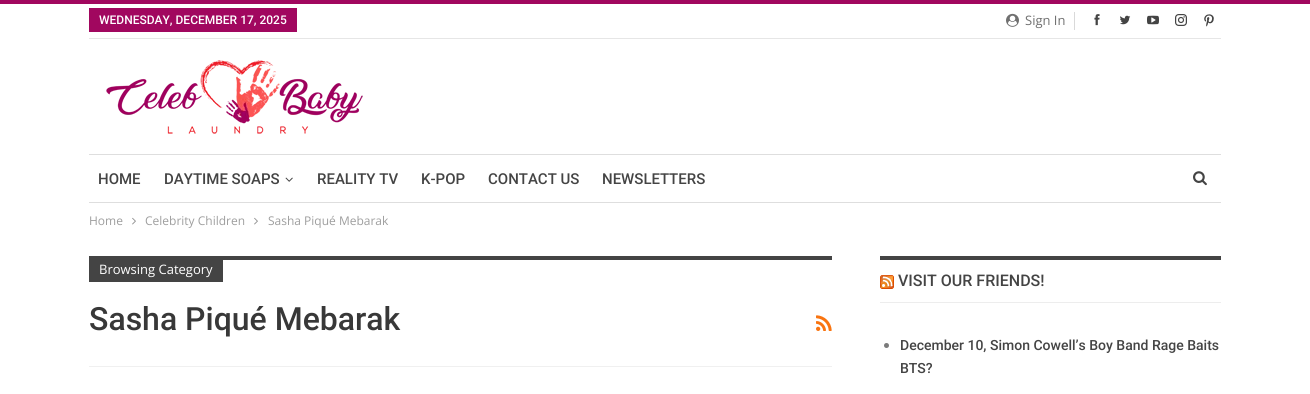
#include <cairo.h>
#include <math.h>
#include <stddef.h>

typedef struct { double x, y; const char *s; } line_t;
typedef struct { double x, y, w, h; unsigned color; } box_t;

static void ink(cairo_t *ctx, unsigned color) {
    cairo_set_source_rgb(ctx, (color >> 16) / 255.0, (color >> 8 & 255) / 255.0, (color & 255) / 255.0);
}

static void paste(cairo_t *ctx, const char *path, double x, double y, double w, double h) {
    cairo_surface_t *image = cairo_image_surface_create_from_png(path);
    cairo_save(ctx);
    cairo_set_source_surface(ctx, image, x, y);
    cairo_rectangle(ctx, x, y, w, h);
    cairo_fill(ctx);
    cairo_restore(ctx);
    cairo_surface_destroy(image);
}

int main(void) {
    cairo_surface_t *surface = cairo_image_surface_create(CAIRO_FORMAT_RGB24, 1310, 394);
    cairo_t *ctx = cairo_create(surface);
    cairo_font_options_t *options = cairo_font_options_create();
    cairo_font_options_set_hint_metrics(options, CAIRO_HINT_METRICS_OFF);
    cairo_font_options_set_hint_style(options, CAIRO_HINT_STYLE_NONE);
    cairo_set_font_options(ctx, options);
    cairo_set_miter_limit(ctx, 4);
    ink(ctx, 0xFFFFFF);
    cairo_paint(ctx);
    {
        static const box_t items[] = {
            {0, 0, 1310, 4, 0xA1075F},
            {89, 38, 1132, 1, 0xE6E6E6},
            {89, 8, 208, 24, 0xA1075F},
        };
        for (size_t i = 0; i < sizeof items / sizeof *items; i++) {
            ink(ctx, items[i].color);
            cairo_rectangle(ctx, items[i].x, items[i].y, items[i].w, items[i].h);
            cairo_fill(ctx);
        }
    }
    cairo_select_font_face(ctx, "Roboto Medium", CAIRO_FONT_SLANT_NORMAL, CAIRO_FONT_WEIGHT_NORMAL);
    cairo_set_font_size(ctx, 12);
    ink(ctx, 0xFFFFFF);
    cairo_move_to(ctx, 99, 24);
    cairo_show_text(ctx, "WEDNESDAY, DECEMBER 17, 2025");
    paste(ctx, "media/1.png", 1006, 13, 13, 14);
    cairo_select_font_face(ctx, "Open Sans", CAIRO_FONT_SLANT_NORMAL, CAIRO_FONT_WEIGHT_NORMAL);
    cairo_set_font_size(ctx, 13);
    ink(ctx, 0x707070);
    cairo_move_to(ctx, 1025, 25);
    cairo_show_text(ctx, "Sign In");
    ink(ctx, 0xD9D9D9);
    cairo_rectangle(ctx, 1074, 12, 1, 18);
    cairo_fill(ctx);
    paste(ctx, "media/2.png", 1094, 14, 6, 12);
    paste(ctx, "media/3.png", 1120, 15, 11, 10);
    paste(ctx, "media/4.png", 1147, 15, 12, 10);
    paste(ctx, "media/5.png", 1175, 14, 12, 12);
    paste(ctx, "media/6.png", 1204, 14, 10, 13);
    paste(ctx, "media/7.png", 106, 60, 257, 74);
    ink(ctx, 0xDEDEDE);
    cairo_rectangle(ctx, 89, 154, 1132, 1);
    cairo_fill(ctx);
    cairo_rectangle(ctx, 89, 202, 1132, 1);
    cairo_fill(ctx);
    cairo_select_font_face(ctx, "Roboto Medium", CAIRO_FONT_SLANT_NORMAL, CAIRO_FONT_WEIGHT_NORMAL);
    cairo_set_font_size(ctx, 15);
    ink(ctx, 0x444444);
    cairo_move_to(ctx, 98, 184);
    cairo_show_text(ctx, "HOME");
    cairo_move_to(ctx, 164, 184);
    cairo_show_text(ctx, "DAYTIME SOAPS");
    paste(ctx, "media/8.png", 285, 177, 8, 5);
    {
        static const line_t items[] = {
            {317, 184, "REALITY TV"},
            {421, 184, "K-POP"},
            {488, 184, "CONTACT US"},
            {602, 184, "NEWSLETTERS"},
        };
        for (size_t i = 0; i < sizeof items / sizeof *items; i++) {
            cairo_move_to(ctx, items[i].x, items[i].y);
            cairo_show_text(ctx, items[i].s);
        }
    }
    paste(ctx, "media/9.png", 1193, 171, 14, 15);
    cairo_select_font_face(ctx, "Open Sans", CAIRO_FONT_SLANT_NORMAL, CAIRO_FONT_WEIGHT_NORMAL);
    cairo_set_font_size(ctx, 12);
    ink(ctx, 0x9E9E9E);
    cairo_move_to(ctx, 89, 225);
    cairo_show_text(ctx, "Home");
    paste(ctx, "media/10.png", 132, 217, 4, 8);
    cairo_move_to(ctx, 145, 225);
    cairo_show_text(ctx, "Celebrity Children");
    paste(ctx, "media/10.png", 254, 217, 4, 8);
    cairo_move_to(ctx, 268, 225);
    cairo_show_text(ctx, "Sasha Piqué Mebarak");
    {
        static const box_t items[] = {
            {89, 366, 743, 1, 0xF0F0F0},
            {223, 256, 609, 4, 0x444444},
            {89, 256, 134, 26, 0x444444},
        };
        for (size_t i = 0; i < sizeof items / sizeof *items; i++) {
            ink(ctx, items[i].color);
            cairo_rectangle(ctx, items[i].x, items[i].y, items[i].w, items[i].h);
            cairo_fill(ctx);
        }
    }
    cairo_set_font_size(ctx, 13);
    ink(ctx, 0xFFFFFF);
    cairo_move_to(ctx, 99, 274);
    cairo_show_text(ctx, "Browsing Category");
    cairo_select_font_face(ctx, "Roboto Medium", CAIRO_FONT_SLANT_NORMAL, CAIRO_FONT_WEIGHT_NORMAL);
    cairo_set_font_size(ctx, 32);
    ink(ctx, 0x383838);
    cairo_move_to(ctx, 89, 330);
    cairo_show_text(ctx, "Sasha Piqué Mebarak");
    paste(ctx, "media/11.png", 816, 315, 16, 16);
    ink(ctx, 0x444444);
    cairo_rectangle(ctx, 880, 256, 341, 4);
    cairo_fill(ctx);
    paste(ctx, "media/12.png", 880, 275, 14, 14);
    cairo_set_font_size(ctx, 16);
    cairo_move_to(ctx, 898, 286);
    cairo_show_text(ctx, "VISIT OUR FRIENDS!");
    ink(ctx, 0xEDEDED);
    cairo_rectangle(ctx, 880, 302, 341, 1);
    cairo_fill(ctx);
    ink(ctx, 0x7B7B7B);
    cairo_arc(ctx, 886.5, 345.5, 2.5, 0, 2 * M_PI);
    cairo_fill(ctx);
    cairo_set_font_size(ctx, 14);
    ink(ctx, 0x444444);
    cairo_move_to(ctx, 900, 350);
    cairo_show_text(ctx, "December 10, Simon Cowell’s Boy Band Rage Baits");
    cairo_move_to(ctx, 900, 373);
    cairo_show_text(ctx, "BTS?");
    cairo_surface_write_to_png(surface, "image.png");
    cairo_font_options_destroy(options);
    cairo_destroy(ctx);
    cairo_surface_destroy(surface);
    return 0;
}
